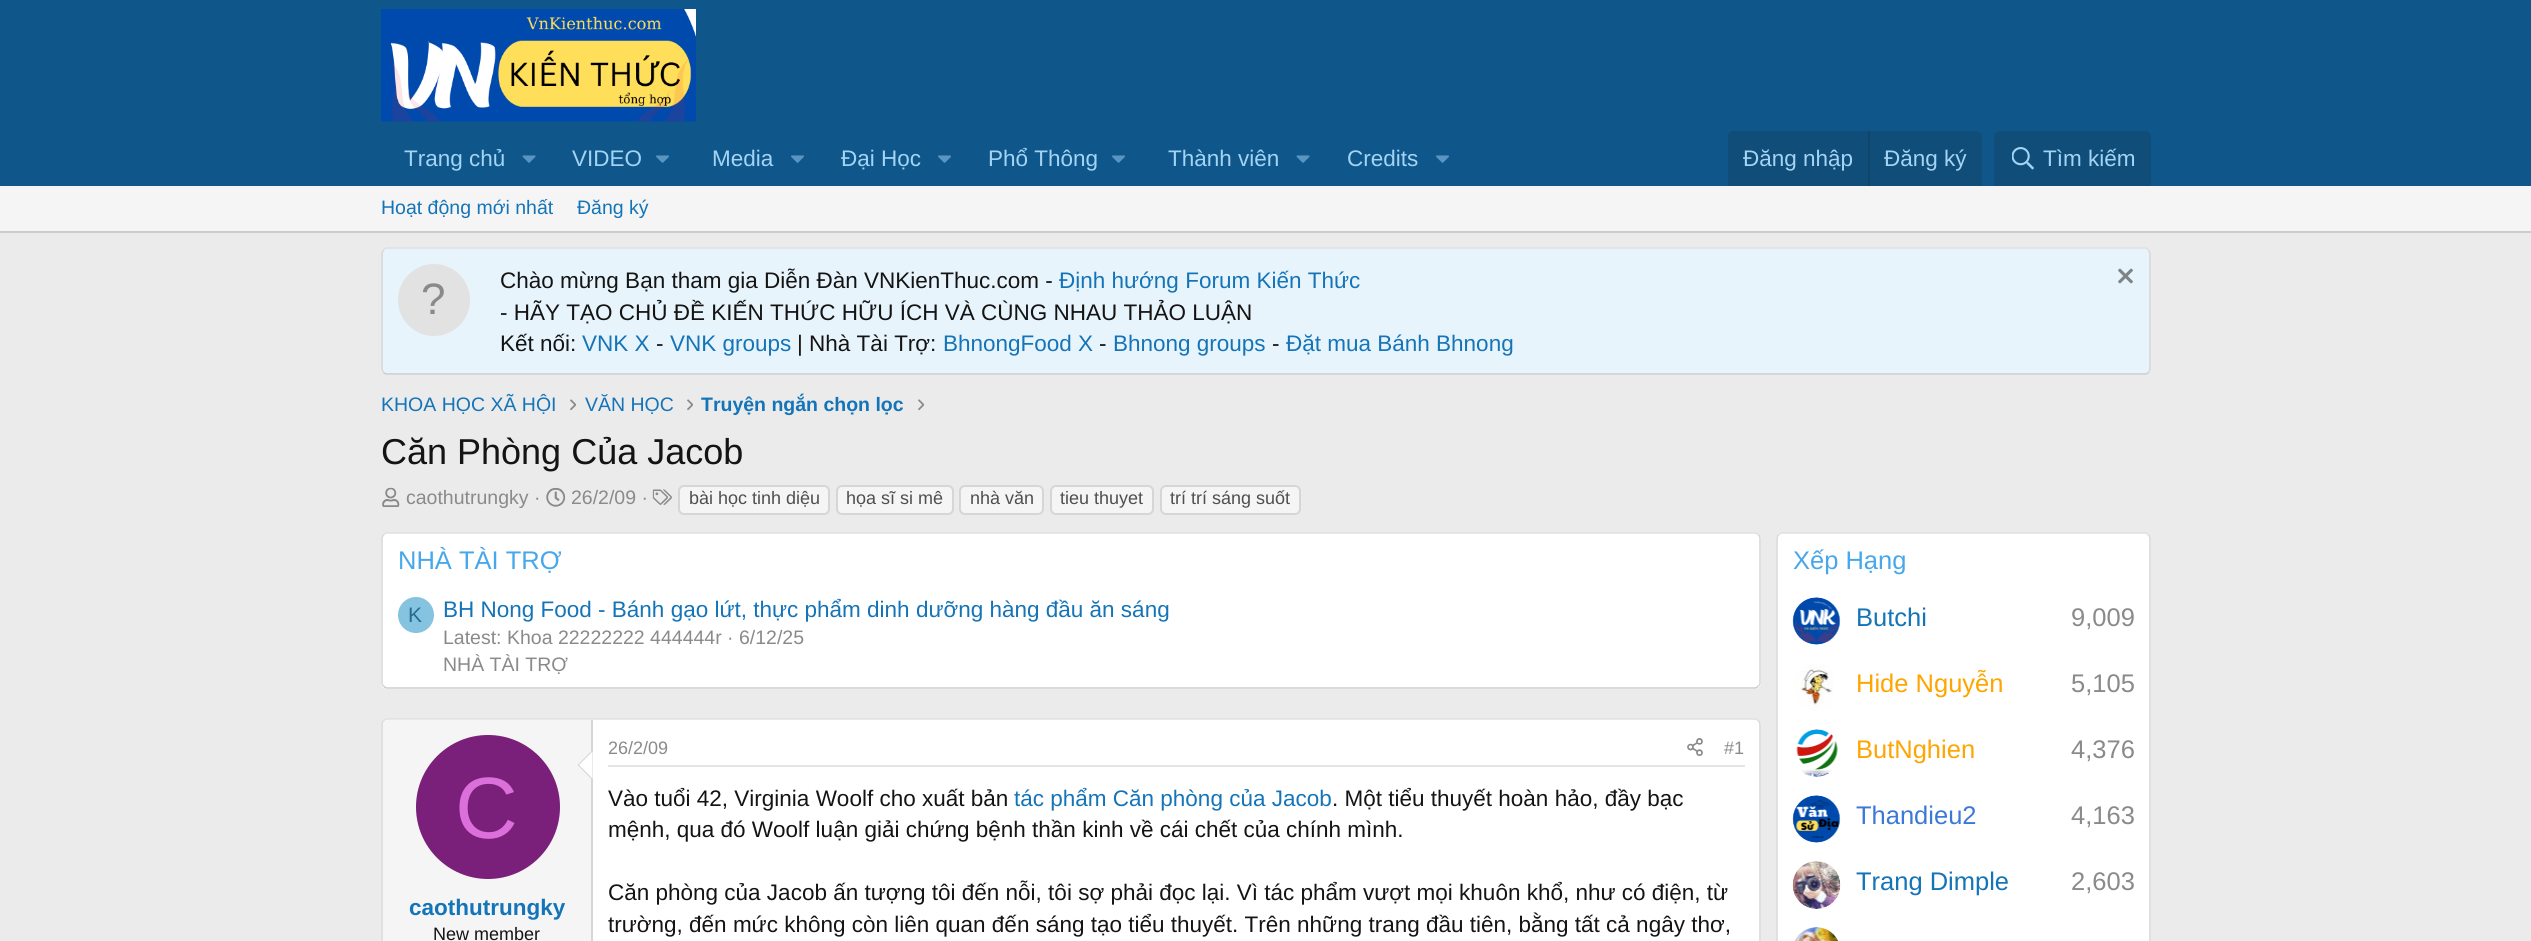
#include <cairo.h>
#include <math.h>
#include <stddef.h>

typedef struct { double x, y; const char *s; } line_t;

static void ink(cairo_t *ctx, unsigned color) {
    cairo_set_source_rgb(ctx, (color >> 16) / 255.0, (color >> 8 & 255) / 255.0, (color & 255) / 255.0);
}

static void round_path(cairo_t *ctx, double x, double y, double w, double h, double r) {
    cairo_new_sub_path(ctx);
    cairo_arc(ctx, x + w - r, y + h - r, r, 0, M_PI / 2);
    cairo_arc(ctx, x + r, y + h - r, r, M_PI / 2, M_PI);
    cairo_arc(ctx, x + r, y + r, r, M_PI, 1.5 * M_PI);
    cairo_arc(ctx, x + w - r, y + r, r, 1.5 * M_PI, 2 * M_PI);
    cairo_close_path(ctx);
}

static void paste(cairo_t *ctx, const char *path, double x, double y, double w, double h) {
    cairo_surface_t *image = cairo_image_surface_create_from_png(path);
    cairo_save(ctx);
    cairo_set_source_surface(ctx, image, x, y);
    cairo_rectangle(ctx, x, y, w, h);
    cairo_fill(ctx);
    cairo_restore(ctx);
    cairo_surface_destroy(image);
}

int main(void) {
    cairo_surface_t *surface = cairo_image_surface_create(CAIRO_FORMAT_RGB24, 2531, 941);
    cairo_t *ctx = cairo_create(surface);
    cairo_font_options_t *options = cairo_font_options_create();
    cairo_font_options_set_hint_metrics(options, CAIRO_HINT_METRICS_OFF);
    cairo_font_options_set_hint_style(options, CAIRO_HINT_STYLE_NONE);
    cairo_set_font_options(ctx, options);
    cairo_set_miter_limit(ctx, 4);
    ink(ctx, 0xEBEBEB);
    cairo_paint(ctx);
    ink(ctx, 0x0F578A);
    cairo_rectangle(ctx, 0, 0, 2531, 186);
    cairo_fill(ctx);
    paste(ctx, "media/1.png", 381, 9, 315, 113);
    cairo_select_font_face(ctx, "Liberation Sans", CAIRO_FONT_SLANT_NORMAL, CAIRO_FONT_WEIGHT_NORMAL);
    cairo_set_font_size(ctx, 22.5);
    ink(ctx, 0xA3D4F5);
    cairo_move_to(ctx, 404, 166);
    cairo_show_text(ctx, "Trang chủ");
    paste(ctx, "media/2.png", 522, 155, 14, 8);
    cairo_move_to(ctx, 572, 166);
    cairo_show_text(ctx, "VIDEO");
    paste(ctx, "media/3.png", 656, 155, 13, 8);
    cairo_move_to(ctx, 712, 166);
    cairo_show_text(ctx, "Media");
    paste(ctx, "media/3.png", 791, 155, 13, 8);
    cairo_move_to(ctx, 841, 166);
    cairo_show_text(ctx, "Đại Học");
    paste(ctx, "media/3.png", 938, 155, 13, 8);
    cairo_move_to(ctx, 988, 166);
    cairo_show_text(ctx, "Phổ Thông");
    paste(ctx, "media/3.png", 1112, 155, 13, 8);
    cairo_move_to(ctx, 1168, 166);
    cairo_show_text(ctx, "Thành viên");
    paste(ctx, "media/2.png", 1296, 155, 14, 8);
    cairo_move_to(ctx, 1347, 166);
    cairo_show_text(ctx, "Credits");
    paste(ctx, "media/3.png", 1436, 155, 13, 8);
    ink(ctx, 0x104D78);
    cairo_new_path(ctx);
    cairo_move_to(ctx, 1734, 131);
    cairo_line_to(ctx, 1976, 131);
    cairo_curve_to(ctx, 1979.5, 131, 1982, 133.5, 1982, 137);
    cairo_line_to(ctx, 1982, 186);
    cairo_line_to(ctx, 1728, 186);
    cairo_line_to(ctx, 1728, 137);
    cairo_curve_to(ctx, 1728, 133.5, 1730.5, 131, 1734, 131);
    cairo_close_path(ctx);
    cairo_fill(ctx);
    ink(ctx, 0xA3D4F5);
    cairo_move_to(ctx, 1743, 166);
    cairo_show_text(ctx, "Đăng nhập");
    ink(ctx, 0x114469);
    cairo_rectangle(ctx, 1868, 131, 2, 55);
    cairo_fill(ctx);
    ink(ctx, 0xA3D4F5);
    cairo_move_to(ctx, 1884, 166);
    cairo_show_text(ctx, "Đăng ký");
    ink(ctx, 0x104D78);
    cairo_new_path(ctx);
    cairo_move_to(ctx, 2000, 131);
    cairo_line_to(ctx, 2145, 131);
    cairo_curve_to(ctx, 2148.5, 131, 2151, 133.5, 2151, 137);
    cairo_line_to(ctx, 2151, 186);
    cairo_line_to(ctx, 1994, 186);
    cairo_line_to(ctx, 1994, 137);
    cairo_curve_to(ctx, 1994, 133.5, 1996.5, 131, 2000, 131);
    cairo_close_path(ctx);
    cairo_fill(ctx);
    paste(ctx, "media/4.png", 2012, 147, 22, 23);
    ink(ctx, 0xA3D4F5);
    cairo_move_to(ctx, 2043, 166);
    cairo_show_text(ctx, "Tìm kiếm");
    ink(ctx, 0xF5F5F5);
    cairo_rectangle(ctx, 0, 186, 2531, 45);
    cairo_fill(ctx);
    ink(ctx, 0xCCCCCC);
    cairo_rectangle(ctx, 0, 231, 2531, 2);
    cairo_fill(ctx);
    cairo_set_font_size(ctx, 19.5);
    ink(ctx, 0x1474B8);
    cairo_move_to(ctx, 381, 214);
    cairo_show_text(ctx, "Hoạt động mới nhất");
    cairo_move_to(ctx, 577, 214);
    cairo_show_text(ctx, "Đăng ký");
    ink(ctx, 0xE8F4FC);
    round_path(ctx, 381, 248, 1770, 127, 6);
    cairo_fill(ctx);
    cairo_new_path(ctx);
    cairo_move_to(ctx, 383.5, 250);
    cairo_curve_to(ctx, 384.5, 249, 385.5, 248, 387, 248);
    cairo_line_to(ctx, 2145, 248);
    cairo_curve_to(ctx, 2146.5, 248, 2147.5, 249, 2148.5, 250);
    ink(ctx, 0xE0E0E0);
    cairo_set_line_width(ctx, 1.5);
    cairo_stroke(ctx);
    cairo_new_path(ctx);
    cairo_move_to(ctx, 2148.5, 250);
    cairo_line_to(ctx, 2150, 253);
    cairo_line_to(ctx, 2150, 369.5);
    cairo_line_to(ctx, 2148.5, 372.5);
    ink(ctx, 0xD6D6D6);
    cairo_stroke(ctx);
    cairo_new_path(ctx);
    cairo_move_to(ctx, 2148.5, 372.5);
    cairo_curve_to(ctx, 2147.5, 373.5, 2146.5, 374, 2145, 374);
    cairo_line_to(ctx, 387, 374);
    cairo_curve_to(ctx, 385.5, 374, 384.5, 373.5, 383.5, 372.5);
    ink(ctx, 0xCCCCCC);
    cairo_stroke(ctx);
    cairo_new_path(ctx);
    cairo_move_to(ctx, 383.5, 372.5);
    cairo_line_to(ctx, 382, 369.5);
    cairo_line_to(ctx, 382, 253);
    cairo_line_to(ctx, 383.5, 250);
    ink(ctx, 0xD6D6D6);
    cairo_stroke(ctx);
    ink(ctx, 0xE2E2E2);
    cairo_arc(ctx, 434, 300, 36, 0, 2 * M_PI);
    cairo_fill(ctx);
    cairo_set_font_size(ctx, 44);
    ink(ctx, 0x8A8A8A);
    cairo_move_to(ctx, 421, 314);
    cairo_show_text(ctx, "?");
    cairo_set_font_size(ctx, 22.5);
    ink(ctx, 0x141414);
    cairo_move_to(ctx, 500, 288);
    cairo_show_text(ctx, "Chào mừng Bạn tham gia Diễn Đàn VNKienThuc.com -");
    ink(ctx, 0x1474B8);
    cairo_move_to(ctx, 1059, 288);
    cairo_show_text(ctx, "Định hướng Forum Kiến Thức");
    paste(ctx, "media/5.png", 2118, 268, 15, 16);
    ink(ctx, 0x141414);
    cairo_move_to(ctx, 500, 320);
    cairo_show_text(ctx, "- HÃY TẠO CHỦ ĐỀ KIẾN THỨC HỮU ÍCH VÀ CÙNG NHAU THẢO LUẬN");
    cairo_move_to(ctx, 500, 351);
    cairo_show_text(ctx, "Kết nối:");
    ink(ctx, 0x1474B8);
    cairo_move_to(ctx, 582, 351);
    cairo_show_text(ctx, "VNK X");
    ink(ctx, 0x141414);
    cairo_move_to(ctx, 656, 351);
    cairo_show_text(ctx, "-");
    ink(ctx, 0x1474B8);
    cairo_move_to(ctx, 670, 351);
    cairo_show_text(ctx, "VNK groups");
    ink(ctx, 0x141414);
    cairo_move_to(ctx, 797, 351);
    cairo_show_text(ctx, "| Nhà Tài Trợ:");
    ink(ctx, 0x1474B8);
    cairo_move_to(ctx, 943, 351);
    cairo_show_text(ctx, "BhnongFood X");
    ink(ctx, 0x141414);
    cairo_move_to(ctx, 1099, 351);
    cairo_show_text(ctx, "-");
    ink(ctx, 0x1474B8);
    cairo_move_to(ctx, 1113, 351);
    cairo_show_text(ctx, "Bhnong groups");
    ink(ctx, 0x141414);
    cairo_move_to(ctx, 1272, 351);
    cairo_show_text(ctx, "-");
    ink(ctx, 0x1474B8);
    cairo_move_to(ctx, 1286, 351);
    cairo_show_text(ctx, "Đặt mua Bánh Bhnong");
    cairo_set_font_size(ctx, 19.5);
    cairo_move_to(ctx, 381, 411);
    cairo_show_text(ctx, "KHOA HỌC XÃ HỘI");
    paste(ctx, "media/6.png", 570, 399, 6, 12);
    cairo_move_to(ctx, 585, 411);
    cairo_show_text(ctx, "VĂN HỌC");
    paste(ctx, "media/6.png", 687, 399, 6, 12);
    cairo_select_font_face(ctx, "Liberation Sans", CAIRO_FONT_SLANT_NORMAL, CAIRO_FONT_WEIGHT_BOLD);
    cairo_move_to(ctx, 701, 411);
    cairo_show_text(ctx, "Truyện ngắn chọn lọc");
    paste(ctx, "media/6.png", 918, 399, 6, 12);
    cairo_select_font_face(ctx, "Liberation Sans", CAIRO_FONT_SLANT_NORMAL, CAIRO_FONT_WEIGHT_NORMAL);
    cairo_set_font_size(ctx, 36);
    ink(ctx, 0x141414);
    cairo_move_to(ctx, 381, 464);
    cairo_show_text(ctx, "Căn Phòng Của Jacob");
    paste(ctx, "media/7.png", 382, 487, 18, 20);
    cairo_set_font_size(ctx, 19.5);
    ink(ctx, 0x8A8A8A);
    cairo_move_to(ctx, 406, 504);
    cairo_show_text(ctx, "caothutrungky ·");
    paste(ctx, "media/8.png", 546, 487, 20, 20);
    cairo_move_to(ctx, 571, 504);
    cairo_show_text(ctx, "26/2/09 ·");
    paste(ctx, "media/9.png", 652, 489, 20, 16);
    ink(ctx, 0xF5F5F5);
    round_path(ctx, 679, 486, 150, 28, 5);
    cairo_fill_preserve(ctx);
    ink(ctx, 0xD6D6D6);
    cairo_set_line_width(ctx, 2);
    cairo_stroke(ctx);
    cairo_set_font_size(ctx, 18);
    ink(ctx, 0x4F4F4F);
    cairo_move_to(ctx, 689, 504);
    cairo_show_text(ctx, "bài học tinh diệu");
    ink(ctx, 0xF5F5F5);
    round_path(ctx, 837, 486, 116, 28, 5);
    cairo_fill_preserve(ctx);
    ink(ctx, 0xD6D6D6);
    cairo_stroke(ctx);
    ink(ctx, 0x4F4F4F);
    cairo_move_to(ctx, 846, 504);
    cairo_show_text(ctx, "họa sĩ si mê");
    ink(ctx, 0xF5F5F5);
    round_path(ctx, 960, 486, 83, 28, 5);
    cairo_fill_preserve(ctx);
    ink(ctx, 0xD6D6D6);
    cairo_stroke(ctx);
    ink(ctx, 0x4F4F4F);
    cairo_move_to(ctx, 970, 504);
    cairo_show_text(ctx, "nhà văn");
    ink(ctx, 0xF5F5F5);
    round_path(ctx, 1051, 486, 102, 28, 5);
    cairo_fill_preserve(ctx);
    ink(ctx, 0xD6D6D6);
    cairo_stroke(ctx);
    ink(ctx, 0x4F4F4F);
    cairo_move_to(ctx, 1060, 504);
    cairo_show_text(ctx, "tieu thuyet");
    ink(ctx, 0xF5F5F5);
    round_path(ctx, 1161, 486, 139, 28, 5);
    cairo_fill_preserve(ctx);
    ink(ctx, 0xD6D6D6);
    cairo_stroke(ctx);
    ink(ctx, 0x4F4F4F);
    cairo_move_to(ctx, 1170, 504);
    cairo_show_text(ctx, "trí trí sáng suốt");
    ink(ctx, 0xFFFFFF);
    round_path(ctx, 381, 533, 1380, 156, 6);
    cairo_fill(ctx);
    cairo_new_path(ctx);
    cairo_move_to(ctx, 383.5, 535);
    cairo_curve_to(ctx, 384.5, 534, 385.5, 533, 387, 533);
    cairo_line_to(ctx, 1755, 533);
    cairo_curve_to(ctx, 1756.5, 533, 1757.5, 534, 1758.5, 535);
    ink(ctx, 0xE0E0E0);
    cairo_set_line_width(ctx, 1.5);
    cairo_stroke(ctx);
    cairo_new_path(ctx);
    cairo_move_to(ctx, 1758.5, 535);
    cairo_curve_to(ctx, 1759.5, 536, 1760, 537, 1760, 538.5);
    cairo_line_to(ctx, 1760, 682.5);
    cairo_curve_to(ctx, 1760, 684, 1759.5, 685, 1758.5, 686);
    ink(ctx, 0xD6D6D6);
    cairo_stroke(ctx);
    cairo_new_path(ctx);
    cairo_move_to(ctx, 1758.5, 686);
    cairo_curve_to(ctx, 1757.5, 687, 1756.5, 688, 1755, 688);
    cairo_line_to(ctx, 387, 688);
    cairo_curve_to(ctx, 385.5, 688, 384.5, 687, 383.5, 686);
    ink(ctx, 0xCCCCCC);
    cairo_stroke(ctx);
    cairo_new_path(ctx);
    cairo_move_to(ctx, 383.5, 686);
    cairo_curve_to(ctx, 382.5, 685, 382, 684, 382, 682.5);
    cairo_line_to(ctx, 382, 538.5);
    cairo_curve_to(ctx, 382, 537, 382.5, 536, 383.5, 535);
    ink(ctx, 0xD6D6D6);
    cairo_stroke(ctx);
    cairo_set_font_size(ctx, 25.5);
    ink(ctx, 0x47A7EB);
    cairo_move_to(ctx, 398, 569);
    cairo_show_text(ctx, "NHÀ TÀI TRỢ");
    ink(ctx, 0x85C3E0);
    cairo_new_path(ctx);
    cairo_arc(ctx, 416, 615, 18, 0, 2 * M_PI);
    cairo_fill(ctx);
    cairo_set_font_size(ctx, 21);
    ink(ctx, 0x246D8F);
    cairo_move_to(ctx, 408, 622);
    cairo_show_text(ctx, "K");
    cairo_set_font_size(ctx, 22.5);
    ink(ctx, 0x1474B8);
    cairo_move_to(ctx, 443, 617);
    cairo_show_text(ctx, "BH Nong Food - Bánh gạo lứt, thực phẩm dinh dưỡng hàng đầu ăn sáng");
    cairo_set_font_size(ctx, 19.5);
    ink(ctx, 0x8A8A8A);
    cairo_move_to(ctx, 443, 644);
    cairo_show_text(ctx, "Latest: Khoa 22222222 444444r · 6/12/25");
    cairo_move_to(ctx, 443, 671);
    cairo_show_text(ctx, "NHÀ TÀI TRỢ");
    ink(ctx, 0xFFFFFF);
    round_path(ctx, 381, 719, 1380, 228, 6);
    cairo_fill(ctx);
    cairo_new_path(ctx);
    cairo_move_to(ctx, 383.5, 721);
    cairo_curve_to(ctx, 384.5, 720, 385.5, 719, 387, 719);
    cairo_line_to(ctx, 1755, 719);
    cairo_curve_to(ctx, 1756.5, 719, 1757.5, 720, 1758.5, 721);
    ink(ctx, 0xE0E0E0);
    cairo_stroke(ctx);
    cairo_new_path(ctx);
    cairo_move_to(ctx, 1758.5, 721);
    cairo_curve_to(ctx, 1759.5, 722, 1760, 723, 1760, 724.5);
    cairo_line_to(ctx, 1760, 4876.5);
    cairo_curve_to(ctx, 1760, 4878, 1759.5, 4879, 1758.5, 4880);
    ink(ctx, 0xD6D6D6);
    cairo_stroke(ctx);
    cairo_new_path(ctx);
    cairo_move_to(ctx, 383.5, 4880);
    cairo_curve_to(ctx, 382.5, 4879, 382, 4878, 382, 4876.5);
    cairo_line_to(ctx, 382, 724.5);
    cairo_curve_to(ctx, 382, 723, 382.5, 722, 383.5, 721);
    cairo_stroke(ctx);
    ink(ctx, 0xF5F5F5);
    cairo_new_path(ctx);
    cairo_move_to(ctx, 388, 720);
    cairo_line_to(ctx, 593, 720);
    cairo_line_to(ctx, 593, 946);
    cairo_line_to(ctx, 388, 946);
    cairo_curve_to(ctx, 385, 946, 383, 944, 383, 941);
    cairo_line_to(ctx, 383, 725);
    cairo_curve_to(ctx, 383, 722, 385, 720, 388, 720);
    cairo_close_path(ctx);
    cairo_fill(ctx);
    ink(ctx, 0xD6D6D6);
    cairo_rectangle(ctx, 591, 720, 2, 221);
    cairo_fill(ctx);
    cairo_new_path(ctx);
    cairo_move_to(ctx, 592.5, 750);
    cairo_line_to(ctx, 592.5, 780);
    cairo_line_to(ctx, 577.5, 765);
    cairo_close_path(ctx);
    cairo_fill(ctx);
    ink(ctx, 0xFFFFFF);
    cairo_new_path(ctx);
    cairo_move_to(ctx, 592.5, 751.5);
    cairo_line_to(ctx, 592.5, 778.5);
    cairo_line_to(ctx, 579, 765);
    cairo_close_path(ctx);
    cairo_fill(ctx);
    ink(ctx, 0x7A1F7A);
    cairo_arc(ctx, 488, 807, 72, 0, 2 * M_PI);
    cairo_fill(ctx);
    cairo_set_font_size(ctx, 87);
    ink(ctx, 0xDB70DB);
    cairo_move_to(ctx, 455, 838);
    cairo_show_text(ctx, "C");
    cairo_select_font_face(ctx, "Liberation Sans", CAIRO_FONT_SLANT_NORMAL, CAIRO_FONT_WEIGHT_BOLD);
    cairo_set_font_size(ctx, 22.5);
    ink(ctx, 0x1474B8);
    cairo_move_to(ctx, 409, 915);
    cairo_show_text(ctx, "caothutrungky");
    cairo_select_font_face(ctx, "Liberation Sans", CAIRO_FONT_SLANT_NORMAL, CAIRO_FONT_WEIGHT_NORMAL);
    cairo_set_font_size(ctx, 18);
    ink(ctx, 0x141414);
    cairo_move_to(ctx, 433, 940);
    cairo_show_text(ctx, "New member");
    ink(ctx, 0xE5E5E5);
    cairo_rectangle(ctx, 608, 765, 1137, 2);
    cairo_fill(ctx);
    ink(ctx, 0x8A8A8A);
    cairo_move_to(ctx, 608, 754);
    cairo_show_text(ctx, "26/2/09");
    paste(ctx, "media/10.png", 1687, 738, 16, 18);
    cairo_move_to(ctx, 1724, 754);
    cairo_show_text(ctx, "#1");
    cairo_set_font_size(ctx, 22.5);
    ink(ctx, 0x141414);
    cairo_move_to(ctx, 608, 806);
    cairo_show_text(ctx, "Vào tuổi 42, Virginia Woolf cho xuất bản");
    ink(ctx, 0x1474B8);
    cairo_move_to(ctx, 1014, 806);
    cairo_show_text(ctx, "tác phẩm Căn phòng của Jacob");
    ink(ctx, 0x141414);
    {
        static const line_t items[] = {
            {1332, 806, ". Một tiểu thuyết hoàn hảo, đầy bạc"},
            {608, 837, "mệnh, qua đó Woolf luận giải chứng bệnh thần kinh về cái chết của chính mình."},
            {608, 900, "Căn phòng của Jacob ấn tượng tôi đến nỗi, tôi sợ phải đọc lại. Vì tác phẩm vượt mọi khuôn khổ, như có điện, từ"},
            {608, 932, "trường, đến mức không còn liên quan đến sáng tạo tiểu thuyết. Trên những trang đầu tiên, bằng tất cả ngây thơ,"},
        };
        for (size_t i = 0; i < sizeof items / sizeof *items; i++) {
            cairo_move_to(ctx, items[i].x, items[i].y);
            cairo_show_text(ctx, items[i].s);
        }
    }
    ink(ctx, 0xFFFFFF);
    round_path(ctx, 1776, 533, 375, 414, 6);
    cairo_fill(ctx);
    cairo_new_path(ctx);
    cairo_move_to(ctx, 1778.5, 535);
    cairo_curve_to(ctx, 1779.5, 534, 1780.5, 533, 1782, 533);
    cairo_line_to(ctx, 2145, 533);
    cairo_curve_to(ctx, 2146.5, 533, 2147.5, 534, 2148.5, 535);
    ink(ctx, 0xE0E0E0);
    cairo_stroke(ctx);
    cairo_new_path(ctx);
    cairo_move_to(ctx, 2148.5, 535);
    cairo_curve_to(ctx, 2149.5, 536, 2150, 537, 2150, 538.5);
    cairo_line_to(ctx, 2150, 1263);
    cairo_curve_to(ctx, 2150, 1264.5, 2149.5, 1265.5, 2148.5, 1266.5);
    ink(ctx, 0xD6D6D6);
    cairo_stroke(ctx);
    cairo_new_path(ctx);
    cairo_move_to(ctx, 1778.5, 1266.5);
    cairo_curve_to(ctx, 1777.5, 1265.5, 1777, 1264.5, 1777, 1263);
    cairo_line_to(ctx, 1777, 538.5);
    cairo_curve_to(ctx, 1777, 537, 1777.5, 536, 1778.5, 535);
    cairo_stroke(ctx);
    cairo_set_font_size(ctx, 25.5);
    ink(ctx, 0x47A7EB);
    cairo_move_to(ctx, 1793, 569);
    cairo_show_text(ctx, "Xếp Hạng");
    paste(ctx, "media/11.png", 1792, 597, 49, 48);
    ink(ctx, 0x1474B8);
    cairo_move_to(ctx, 1856, 626);
    cairo_show_text(ctx, "Butchi");
    ink(ctx, 0x8A8A8A);
    cairo_move_to(ctx, 2071, 626);
    cairo_show_text(ctx, "9,009");
    paste(ctx, "media/12.png", 1793, 664, 40, 47);
    ink(ctx, 0xFFA500);
    cairo_move_to(ctx, 1856, 692);
    cairo_show_text(ctx, "Hide Nguyễn");
    ink(ctx, 0x8A8A8A);
    cairo_move_to(ctx, 2071, 692);
    cairo_show_text(ctx, "5,105");
    paste(ctx, "media/13.png", 1796, 729, 42, 48);
    ink(ctx, 0xFFA500);
    cairo_move_to(ctx, 1856, 758);
    cairo_show_text(ctx, "ButNghien");
    ink(ctx, 0x8A8A8A);
    cairo_move_to(ctx, 2071, 758);
    cairo_show_text(ctx, "4,376");
    paste(ctx, "media/14.png", 1792, 795, 49, 48);
    ink(ctx, 0x3C78D8);
    cairo_move_to(ctx, 1856, 824);
    cairo_show_text(ctx, "Thandieu2");
    ink(ctx, 0x8A8A8A);
    cairo_move_to(ctx, 2071, 824);
    cairo_show_text(ctx, "4,163");
    paste(ctx, "media/15.png", 1792, 861, 49, 48);
    ink(ctx, 0x1474B8);
    cairo_move_to(ctx, 1856, 890);
    cairo_show_text(ctx, "Trang Dimple");
    ink(ctx, 0x8A8A8A);
    cairo_move_to(ctx, 2071, 890);
    cairo_show_text(ctx, "2,603");
    paste(ctx, "media/16.png", 1795, 927, 43, 14);
    cairo_surface_write_to_png(surface, "image.png");
    cairo_font_options_destroy(options);
    cairo_destroy(ctx);
    cairo_surface_destroy(surface);
    return 0;
}
